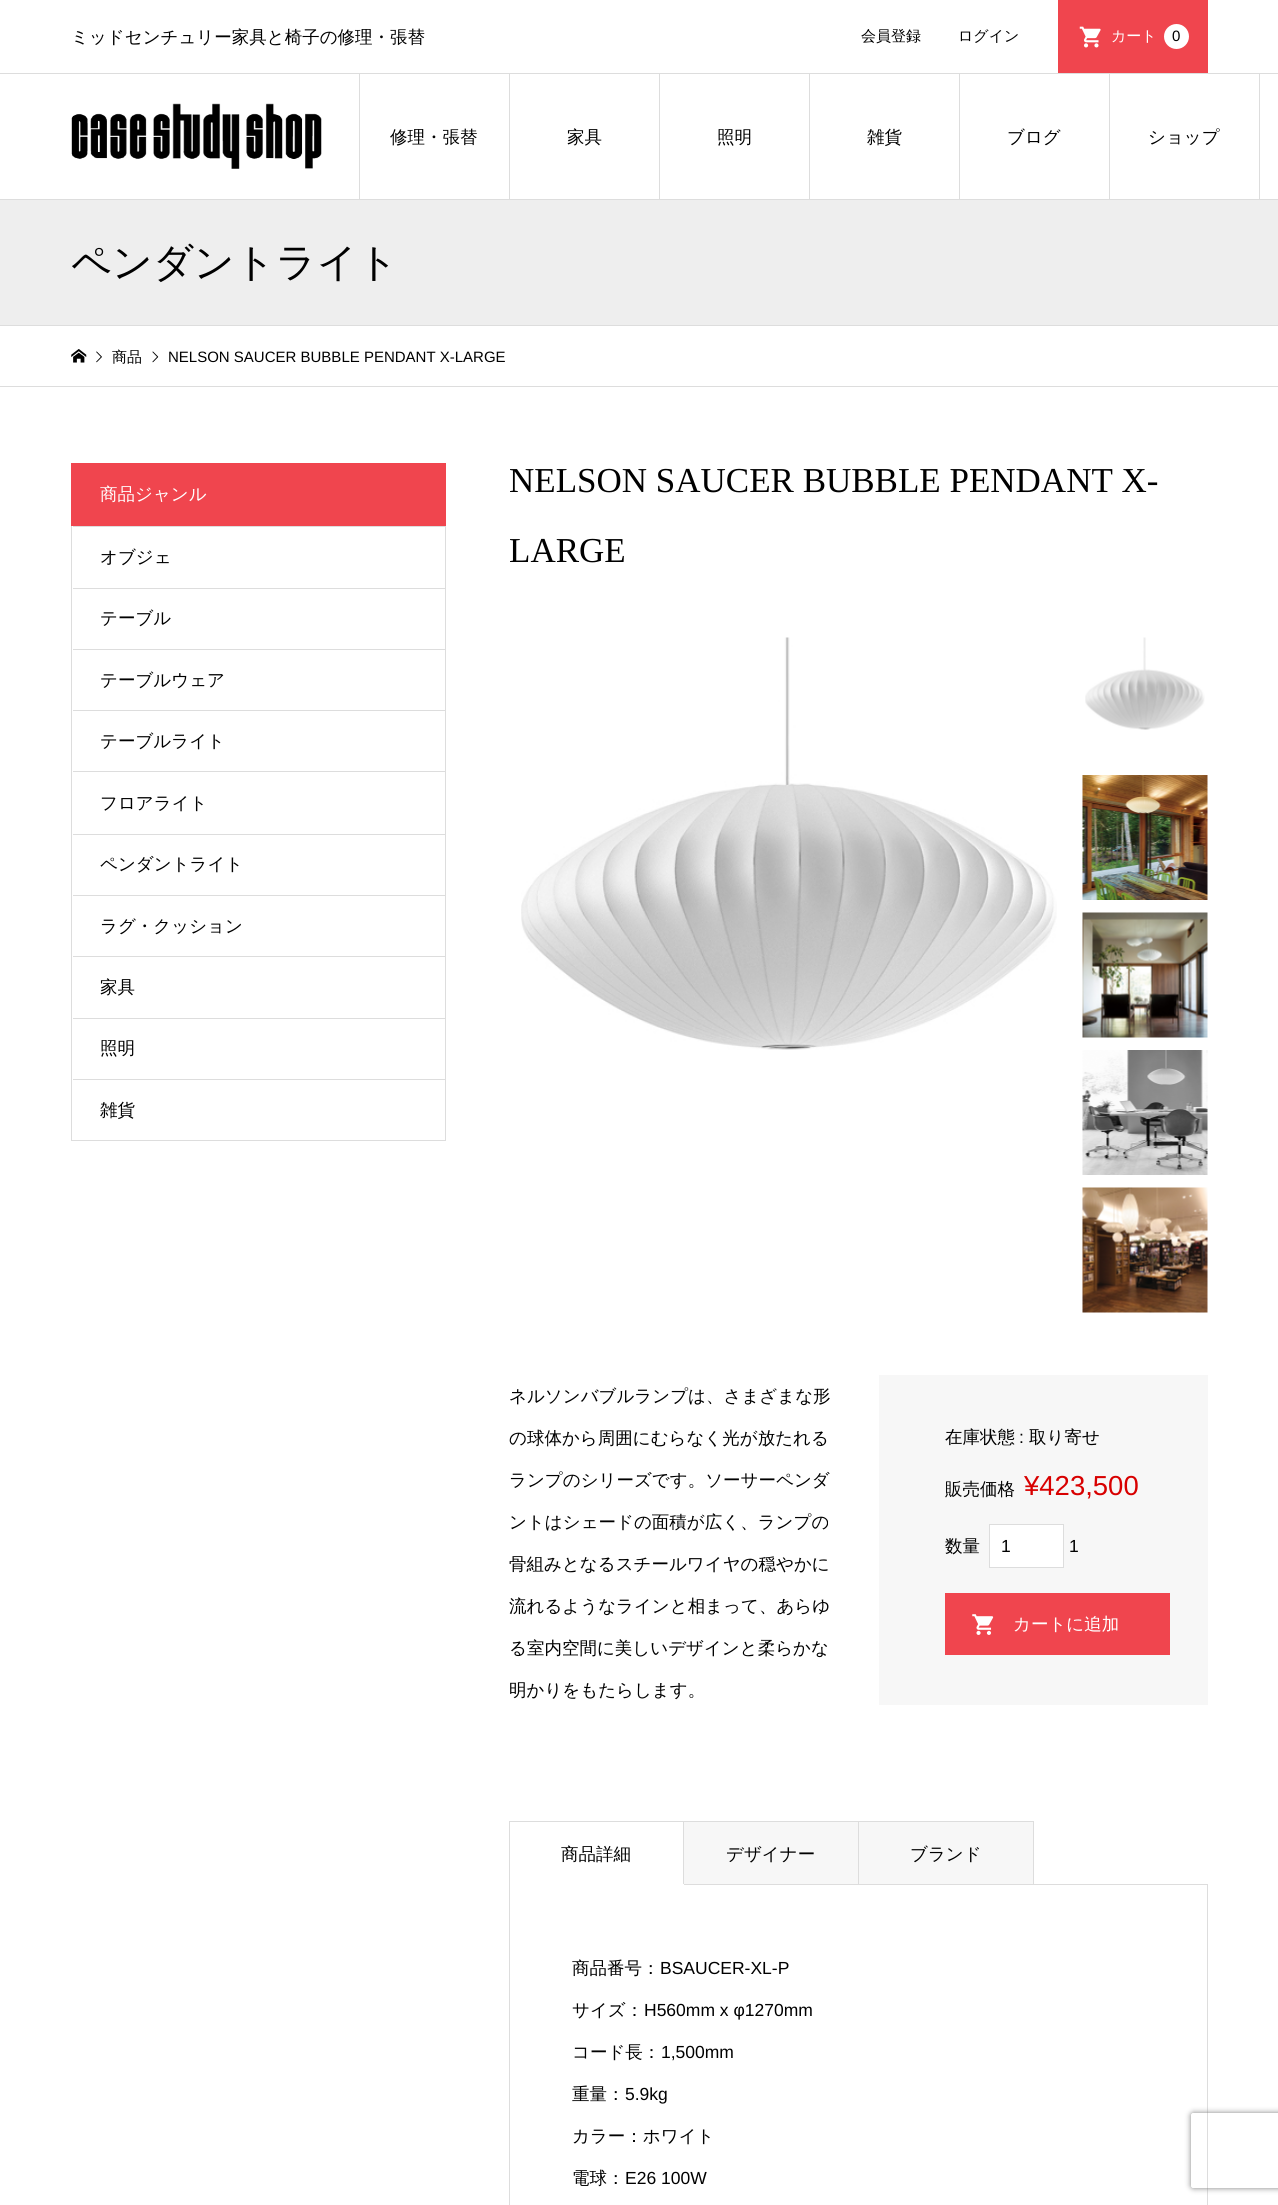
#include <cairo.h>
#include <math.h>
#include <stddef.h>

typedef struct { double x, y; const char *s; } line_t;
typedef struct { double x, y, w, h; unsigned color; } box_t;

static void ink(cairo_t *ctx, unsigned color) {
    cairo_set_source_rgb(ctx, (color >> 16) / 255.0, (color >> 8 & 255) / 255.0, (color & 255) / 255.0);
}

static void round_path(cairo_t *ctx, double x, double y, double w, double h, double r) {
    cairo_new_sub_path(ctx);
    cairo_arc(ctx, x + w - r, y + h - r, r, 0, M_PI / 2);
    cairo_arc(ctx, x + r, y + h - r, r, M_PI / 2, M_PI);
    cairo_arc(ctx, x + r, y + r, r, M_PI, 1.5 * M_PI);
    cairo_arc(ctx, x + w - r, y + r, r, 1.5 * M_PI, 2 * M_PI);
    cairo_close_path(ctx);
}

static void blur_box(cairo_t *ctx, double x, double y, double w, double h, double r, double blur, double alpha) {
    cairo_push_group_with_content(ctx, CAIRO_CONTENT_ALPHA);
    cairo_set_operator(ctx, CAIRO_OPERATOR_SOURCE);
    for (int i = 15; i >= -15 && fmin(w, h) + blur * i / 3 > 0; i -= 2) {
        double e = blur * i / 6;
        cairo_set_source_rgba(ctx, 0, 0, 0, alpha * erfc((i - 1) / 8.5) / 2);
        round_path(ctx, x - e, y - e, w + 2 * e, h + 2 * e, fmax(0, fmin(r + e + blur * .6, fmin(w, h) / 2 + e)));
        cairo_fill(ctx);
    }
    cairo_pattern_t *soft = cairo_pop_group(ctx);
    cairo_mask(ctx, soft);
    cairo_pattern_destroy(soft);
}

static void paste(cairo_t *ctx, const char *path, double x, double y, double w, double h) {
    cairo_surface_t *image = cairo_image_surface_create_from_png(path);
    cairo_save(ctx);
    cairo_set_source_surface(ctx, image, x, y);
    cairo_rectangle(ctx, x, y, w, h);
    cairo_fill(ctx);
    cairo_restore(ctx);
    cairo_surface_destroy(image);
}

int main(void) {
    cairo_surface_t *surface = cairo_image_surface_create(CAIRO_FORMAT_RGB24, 1278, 2205);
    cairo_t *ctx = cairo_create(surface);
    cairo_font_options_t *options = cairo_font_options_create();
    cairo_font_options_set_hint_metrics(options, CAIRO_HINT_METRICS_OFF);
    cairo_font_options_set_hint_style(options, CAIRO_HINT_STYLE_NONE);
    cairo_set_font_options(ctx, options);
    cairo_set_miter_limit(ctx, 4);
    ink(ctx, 0xFFFFFF);
    cairo_paint(ctx);
    ink(ctx, 0xDDDDDD);
    cairo_rectangle(ctx, 0, 73, 1278, 1);
    cairo_fill(ctx);
    cairo_select_font_face(ctx, "WenQuanYi Zen Hei Medium", CAIRO_FONT_SLANT_NORMAL, CAIRO_FONT_WEIGHT_NORMAL);
    cairo_set_font_size(ctx, 17.5);
    ink(ctx, 0x000000);
    cairo_move_to(ctx, 71, 43);
    cairo_show_text(ctx, "ミッドセンチュリー家具と椅子の修理・張替");
    cairo_set_font_size(ctx, 15);
    cairo_move_to(ctx, 861, 41);
    cairo_show_text(ctx, "会員登録");
    cairo_move_to(ctx, 958, 41);
    cairo_show_text(ctx, "ログイン");
    ink(ctx, 0xF0454E);
    cairo_rectangle(ctx, 1058, 0, 150, 73);
    cairo_fill(ctx);
    paste(ctx, "media/1.png", 1079, 26, 22, 22);
    ink(ctx, 0xFFFFFF);
    cairo_move_to(ctx, 1111, 41);
    cairo_show_text(ctx, "カート");
    cairo_new_path(ctx);
    cairo_arc(ctx, 1176.5, 36.5, 12.5, 0, 2 * M_PI);
    cairo_fill(ctx);
    cairo_select_font_face(ctx, "Liberation Sans", CAIRO_FONT_SLANT_NORMAL, CAIRO_FONT_WEIGHT_NORMAL);
    ink(ctx, 0x000000);
    cairo_move_to(ctx, 1172, 41);
    cairo_show_text(ctx, "0");
    ink(ctx, 0xDDDDDD);
    cairo_rectangle(ctx, 0, 199, 1278, 1);
    cairo_fill(ctx);
    paste(ctx, "media/2.png", 71, 103, 251, 66);
    cairo_rectangle(ctx, 359, 74, 1, 125);
    cairo_fill(ctx);
    cairo_rectangle(ctx, 509, 74, 1, 126);
    cairo_fill(ctx);
    cairo_select_font_face(ctx, "WenQuanYi Zen Hei Medium", CAIRO_FONT_SLANT_NORMAL, CAIRO_FONT_WEIGHT_NORMAL);
    cairo_set_font_size(ctx, 17.5);
    ink(ctx, 0x000000);
    cairo_move_to(ctx, 390, 143);
    cairo_show_text(ctx, "修理・張替");
    ink(ctx, 0xDDDDDD);
    cairo_rectangle(ctx, 659, 74, 1, 126);
    cairo_fill(ctx);
    ink(ctx, 0x000000);
    cairo_move_to(ctx, 567, 143);
    cairo_show_text(ctx, "家具");
    ink(ctx, 0xDDDDDD);
    cairo_rectangle(ctx, 809, 74, 1, 126);
    cairo_fill(ctx);
    ink(ctx, 0x000000);
    cairo_move_to(ctx, 717, 143);
    cairo_show_text(ctx, "照明");
    ink(ctx, 0xDDDDDD);
    cairo_rectangle(ctx, 959, 74, 1, 126);
    cairo_fill(ctx);
    ink(ctx, 0x000000);
    cairo_move_to(ctx, 867, 143);
    cairo_show_text(ctx, "雑貨");
    ink(ctx, 0xDDDDDD);
    cairo_rectangle(ctx, 1109, 74, 1, 126);
    cairo_fill(ctx);
    ink(ctx, 0x000000);
    cairo_move_to(ctx, 1007, 143);
    cairo_show_text(ctx, "ブログ");
    ink(ctx, 0xDDDDDD);
    cairo_rectangle(ctx, 1259, 74, 1, 126);
    cairo_fill(ctx);
    ink(ctx, 0x000000);
    cairo_move_to(ctx, 1148, 143);
    cairo_show_text(ctx, "ショップ");
    ink(ctx, 0xEEEEEE);
    cairo_rectangle(ctx, 0, 200, 1278, 125);
    cairo_fill(ctx);
    ink(ctx, 0xDDDDDD);
    cairo_rectangle(ctx, 0, 325, 1278, 1);
    cairo_fill(ctx);
    cairo_set_font_size(ctx, 40);
    ink(ctx, 0x000000);
    cairo_move_to(ctx, 71, 276);
    cairo_show_text(ctx, "ペンダントライト");
    ink(ctx, 0xDDDDDD);
    cairo_rectangle(ctx, 0, 386, 1278, 1);
    cairo_fill(ctx);
    paste(ctx, "media/3.png", 71, 349, 16, 14);
    paste(ctx, "media/4.png", 96, 351, 6, 12);
    cairo_set_font_size(ctx, 15);
    ink(ctx, 0x000000);
    cairo_move_to(ctx, 112, 362);
    cairo_show_text(ctx, "商品");
    paste(ctx, "media/5.png", 152, 351, 7, 12);
    cairo_select_font_face(ctx, "Liberation Sans", CAIRO_FONT_SLANT_NORMAL, CAIRO_FONT_WEIGHT_NORMAL);
    cairo_move_to(ctx, 168, 362);
    cairo_show_text(ctx, "NELSON SAUCER BUBBLE PENDANT X-LARGE");
    ink(ctx, 0xF0454E);
    cairo_rectangle(ctx, 71, 463, 375, 63);
    cairo_fill(ctx);
    cairo_select_font_face(ctx, "WenQuanYi Zen Hei Medium", CAIRO_FONT_SLANT_NORMAL, CAIRO_FONT_WEIGHT_NORMAL);
    cairo_set_font_size(ctx, 17.5);
    ink(ctx, 0xFFFFFF);
    cairo_move_to(ctx, 100, 500);
    cairo_show_text(ctx, "商品ジャンル");
    {
        static const box_t items[] = {
            {445, 526, 1, 615, 0xDDDDDD},
            {71, 1140, 375, 1, 0xDDDDDD},
            {71, 526, 1, 615, 0xDDDDDD},
            {73, 526, 372, 1, 0xDDDDDD},
        };
        for (size_t i = 0; i < sizeof items / sizeof *items; i++) {
            ink(ctx, items[i].color);
            cairo_rectangle(ctx, items[i].x, items[i].y, items[i].w, items[i].h);
            cairo_fill(ctx);
        }
    }
    ink(ctx, 0x000000);
    cairo_move_to(ctx, 100, 563);
    cairo_show_text(ctx, "オブジェ");
    ink(ctx, 0xDDDDDD);
    cairo_rectangle(ctx, 73, 588, 372, 1);
    cairo_fill(ctx);
    ink(ctx, 0x000000);
    cairo_move_to(ctx, 100, 624);
    cairo_show_text(ctx, "テーブル");
    ink(ctx, 0xDDDDDD);
    cairo_rectangle(ctx, 73, 649, 372, 1);
    cairo_fill(ctx);
    ink(ctx, 0x000000);
    cairo_move_to(ctx, 100, 686);
    cairo_show_text(ctx, "テーブルウェア");
    ink(ctx, 0xDDDDDD);
    cairo_rectangle(ctx, 73, 710, 372, 1);
    cairo_fill(ctx);
    ink(ctx, 0x000000);
    cairo_move_to(ctx, 100, 747);
    cairo_show_text(ctx, "テーブルライト");
    ink(ctx, 0xDDDDDD);
    cairo_rectangle(ctx, 73, 771, 372, 1);
    cairo_fill(ctx);
    ink(ctx, 0x000000);
    cairo_move_to(ctx, 100, 809);
    cairo_show_text(ctx, "フロアライト");
    ink(ctx, 0xDDDDDD);
    cairo_rectangle(ctx, 73, 834, 372, 1);
    cairo_fill(ctx);
    ink(ctx, 0x000000);
    cairo_move_to(ctx, 100, 870);
    cairo_show_text(ctx, "ペンダントライト");
    ink(ctx, 0xDDDDDD);
    cairo_rectangle(ctx, 73, 895, 372, 1);
    cairo_fill(ctx);
    ink(ctx, 0x000000);
    cairo_move_to(ctx, 100, 932);
    cairo_show_text(ctx, "ラグ・クッション");
    ink(ctx, 0xDDDDDD);
    cairo_rectangle(ctx, 73, 956, 372, 1);
    cairo_fill(ctx);
    ink(ctx, 0x000000);
    cairo_move_to(ctx, 100, 993);
    cairo_show_text(ctx, "家具");
    ink(ctx, 0xDDDDDD);
    cairo_rectangle(ctx, 73, 1018, 372, 1);
    cairo_fill(ctx);
    ink(ctx, 0x000000);
    cairo_move_to(ctx, 100, 1054);
    cairo_show_text(ctx, "照明");
    ink(ctx, 0xDDDDDD);
    cairo_rectangle(ctx, 73, 1079, 372, 1);
    cairo_fill(ctx);
    ink(ctx, 0x000000);
    cairo_move_to(ctx, 100, 1116);
    cairo_show_text(ctx, "雑貨");
    cairo_select_font_face(ctx, "Liberation Serif", CAIRO_FONT_SLANT_NORMAL, CAIRO_FONT_WEIGHT_NORMAL);
    cairo_set_font_size(ctx, 35);
    cairo_move_to(ctx, 509, 492);
    cairo_show_text(ctx, "NELSON SAUCER BUBBLE PENDANT X-");
    cairo_move_to(ctx, 509, 562);
    cairo_show_text(ctx, "LARGE");
    paste(ctx, "media/6.png", 521, 637, 536, 413);
    paste(ctx, "media/7.png", 1085, 637, 120, 93);
    paste(ctx, "media/8.png", 1082, 775, 126, 125);
    paste(ctx, "media/9.png", 1082, 912, 126, 126);
    paste(ctx, "media/10.png", 1082, 1050, 126, 125);
    paste(ctx, "media/11.png", 1082, 1187, 126, 126);
    cairo_select_font_face(ctx, "WenQuanYi Zen Hei Medium", CAIRO_FONT_SLANT_NORMAL, CAIRO_FONT_WEIGHT_NORMAL);
    cairo_set_font_size(ctx, 17.5);
    {
        static const line_t items[] = {
            {509, 1402, "ネルソンバブルランプは、さまざまな形"},
            {509, 1444, "の球体から周囲にむらなく光が放たれる"},
            {509, 1486, "ランプのシリーズです。ソーサーペンダ"},
            {509, 1528, "ントはシェードの面積が広く、ランプの"},
            {509, 1570, "骨組みとなるスチールワイヤの穏やかに"},
            {509, 1612, "流れるようなラインと相まって、あらゆ"},
            {509, 1654, "る室内空間に美しいデザインと柔らかな"},
            {509, 1696, "明かりをもたらします。"},
        };
        for (size_t i = 0; i < sizeof items / sizeof *items; i++) {
            cairo_move_to(ctx, items[i].x, items[i].y);
            cairo_show_text(ctx, items[i].s);
        }
    }
    ink(ctx, 0xF7F7F7);
    cairo_rectangle(ctx, 879, 1375, 329, 330);
    cairo_fill(ctx);
    ink(ctx, 0x000000);
    cairo_move_to(ctx, 945, 1443);
    cairo_show_text(ctx, "在庫状態");
    cairo_select_font_face(ctx, "Liberation Sans", CAIRO_FONT_SLANT_NORMAL, CAIRO_FONT_WEIGHT_NORMAL);
    cairo_move_to(ctx, 1019, 1443);
    cairo_show_text(ctx, ":");
    cairo_select_font_face(ctx, "WenQuanYi Zen Hei Medium", CAIRO_FONT_SLANT_NORMAL, CAIRO_FONT_WEIGHT_NORMAL);
    cairo_move_to(ctx, 1029, 1443);
    cairo_show_text(ctx, "取り寄せ");
    cairo_move_to(ctx, 945, 1495);
    cairo_show_text(ctx, "販売価格");
    cairo_select_font_face(ctx, "Liberation Sans", CAIRO_FONT_SLANT_NORMAL, CAIRO_FONT_WEIGHT_NORMAL);
    cairo_set_font_size(ctx, 27.5);
    ink(ctx, 0xD80000);
    cairo_move_to(ctx, 1024, 1495);
    cairo_show_text(ctx, "¥423,500");
    cairo_select_font_face(ctx, "WenQuanYi Zen Hei Medium", CAIRO_FONT_SLANT_NORMAL, CAIRO_FONT_WEIGHT_NORMAL);
    cairo_set_font_size(ctx, 17.5);
    ink(ctx, 0x000000);
    cairo_move_to(ctx, 945, 1552);
    cairo_show_text(ctx, "数量");
    ink(ctx, 0xFFFFFF);
    cairo_rectangle(ctx, 989.5, 1524.5, 74, 43);
    cairo_fill_preserve(ctx);
    ink(ctx, 0xDDDDDD);
    cairo_set_line_width(ctx, 1);
    cairo_stroke(ctx);
    cairo_select_font_face(ctx, "Liberation Sans", CAIRO_FONT_SLANT_NORMAL, CAIRO_FONT_WEIGHT_NORMAL);
    ink(ctx, 0x000000);
    cairo_move_to(ctx, 1001, 1552);
    cairo_show_text(ctx, "1");
    cairo_move_to(ctx, 1069, 1552);
    cairo_show_text(ctx, "1");
    ink(ctx, 0xF0454E);
    cairo_rectangle(ctx, 945, 1593, 225, 62);
    cairo_fill(ctx);
    paste(ctx, "media/12.png", 972, 1614, 22, 21);
    cairo_select_font_face(ctx, "WenQuanYi Zen Hei Medium", CAIRO_FONT_SLANT_NORMAL, CAIRO_FONT_WEIGHT_NORMAL);
    ink(ctx, 0xFFFFFF);
    cairo_move_to(ctx, 1013, 1630);
    cairo_show_text(ctx, "カートに追加");
    cairo_rectangle(ctx, 509.5, 1884.5, 698, 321);
    ink(ctx, 0xDDDDDD);
    cairo_stroke(ctx);
    {
        static const box_t items[] = {
            {509, 1821, 1, 64, 0xDDDDDD},
            {510, 1821, 524, 1, 0xDDDDDD},
            {683, 1821, 1, 64, 0xDDDDDD},
            {510, 1884, 174, 1, 0xFFFFFF},
        };
        for (size_t i = 0; i < sizeof items / sizeof *items; i++) {
            ink(ctx, items[i].color);
            cairo_rectangle(ctx, items[i].x, items[i].y, items[i].w, items[i].h);
            cairo_fill(ctx);
        }
    }
    ink(ctx, 0x000000);
    cairo_move_to(ctx, 561, 1860);
    cairo_show_text(ctx, "商品詳細");
    ink(ctx, 0xF7F7F7);
    cairo_rectangle(ctx, 684, 1822, 174, 62);
    cairo_fill(ctx);
    ink(ctx, 0xDDDDDD);
    cairo_rectangle(ctx, 858, 1821, 1, 64);
    cairo_fill(ctx);
    ink(ctx, 0x000000);
    cairo_move_to(ctx, 726, 1860);
    cairo_show_text(ctx, "デザイナー");
    ink(ctx, 0xF7F7F7);
    cairo_rectangle(ctx, 859, 1822, 174, 62);
    cairo_fill(ctx);
    ink(ctx, 0xDDDDDD);
    cairo_rectangle(ctx, 1033, 1821, 1, 64);
    cairo_fill(ctx);
    ink(ctx, 0x000000);
    cairo_move_to(ctx, 910, 1860);
    cairo_show_text(ctx, "ブランド");
    cairo_move_to(ctx, 572, 1974);
    cairo_show_text(ctx, "商品番号：");
    cairo_select_font_face(ctx, "Liberation Sans", CAIRO_FONT_SLANT_NORMAL, CAIRO_FONT_WEIGHT_NORMAL);
    cairo_move_to(ctx, 660, 1974);
    cairo_show_text(ctx, "BSAUCER-XL-P");
    cairo_select_font_face(ctx, "WenQuanYi Zen Hei Medium", CAIRO_FONT_SLANT_NORMAL, CAIRO_FONT_WEIGHT_NORMAL);
    cairo_move_to(ctx, 572, 2016);
    cairo_show_text(ctx, "サイズ：");
    cairo_select_font_face(ctx, "Liberation Sans", CAIRO_FONT_SLANT_NORMAL, CAIRO_FONT_WEIGHT_NORMAL);
    cairo_move_to(ctx, 644, 2016);
    cairo_show_text(ctx, "H560mm x φ1270mm");
    cairo_select_font_face(ctx, "WenQuanYi Zen Hei Medium", CAIRO_FONT_SLANT_NORMAL, CAIRO_FONT_WEIGHT_NORMAL);
    cairo_move_to(ctx, 572, 2058);
    cairo_show_text(ctx, "コード長：");
    cairo_select_font_face(ctx, "Liberation Sans", CAIRO_FONT_SLANT_NORMAL, CAIRO_FONT_WEIGHT_NORMAL);
    cairo_move_to(ctx, 661, 2058);
    cairo_show_text(ctx, "1,500mm");
    cairo_select_font_face(ctx, "WenQuanYi Zen Hei Medium", CAIRO_FONT_SLANT_NORMAL, CAIRO_FONT_WEIGHT_NORMAL);
    cairo_move_to(ctx, 572, 2100);
    cairo_show_text(ctx, "重量：");
    cairo_select_font_face(ctx, "Liberation Sans", CAIRO_FONT_SLANT_NORMAL, CAIRO_FONT_WEIGHT_NORMAL);
    cairo_move_to(ctx, 625, 2100);
    cairo_show_text(ctx, "5.9kg");
    cairo_select_font_face(ctx, "WenQuanYi Zen Hei Medium", CAIRO_FONT_SLANT_NORMAL, CAIRO_FONT_WEIGHT_NORMAL);
    cairo_move_to(ctx, 572, 2142);
    cairo_show_text(ctx, "カラー：ホワイト");
    cairo_move_to(ctx, 572, 2184);
    cairo_show_text(ctx, "電球：");
    cairo_select_font_face(ctx, "Liberation Sans", CAIRO_FONT_SLANT_NORMAL, CAIRO_FONT_WEIGHT_NORMAL);
    cairo_move_to(ctx, 625, 2184);
    cairo_show_text(ctx, "E26 100W");
    cairo_save(ctx);
    cairo_set_fill_rule(ctx, CAIRO_FILL_RULE_EVEN_ODD);
    cairo_new_path(ctx);
    cairo_move_to(ctx, 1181, 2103);
    cairo_line_to(ctx, 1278, 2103);
    cairo_line_to(ctx, 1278, 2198);
    cairo_line_to(ctx, 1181, 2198);
    cairo_close_path(ctx);
    cairo_move_to(ctx, 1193.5, 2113);
    cairo_line_to(ctx, 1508.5, 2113);
    cairo_curve_to(ctx, 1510, 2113, 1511, 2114, 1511, 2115.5);
    cairo_line_to(ctx, 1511, 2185.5);
    cairo_curve_to(ctx, 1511, 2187, 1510, 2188, 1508.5, 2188);
    cairo_line_to(ctx, 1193.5, 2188);
    cairo_curve_to(ctx, 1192, 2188, 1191, 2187, 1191, 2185.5);
    cairo_line_to(ctx, 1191, 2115.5);
    cairo_curve_to(ctx, 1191, 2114, 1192, 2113, 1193.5, 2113);
    cairo_close_path(ctx);
    cairo_clip(ctx);
    ink(ctx, 0x808080);
    blur_box(ctx, 1191, 2113, 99, 75, 2.5, 3, 1);
    cairo_restore(ctx);
    cairo_surface_write_to_png(surface, "image.png");
    cairo_font_options_destroy(options);
    cairo_destroy(ctx);
    cairo_surface_destroy(surface);
    return 0;
}
